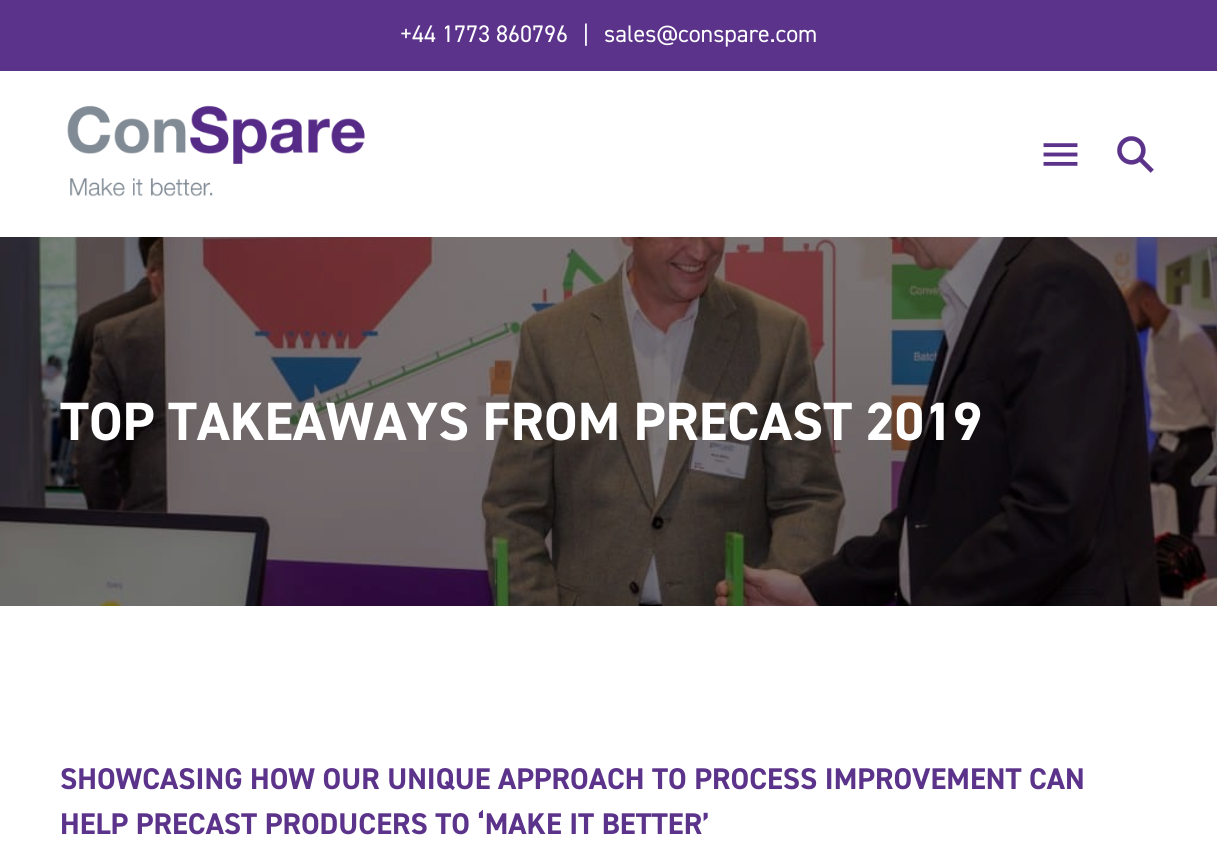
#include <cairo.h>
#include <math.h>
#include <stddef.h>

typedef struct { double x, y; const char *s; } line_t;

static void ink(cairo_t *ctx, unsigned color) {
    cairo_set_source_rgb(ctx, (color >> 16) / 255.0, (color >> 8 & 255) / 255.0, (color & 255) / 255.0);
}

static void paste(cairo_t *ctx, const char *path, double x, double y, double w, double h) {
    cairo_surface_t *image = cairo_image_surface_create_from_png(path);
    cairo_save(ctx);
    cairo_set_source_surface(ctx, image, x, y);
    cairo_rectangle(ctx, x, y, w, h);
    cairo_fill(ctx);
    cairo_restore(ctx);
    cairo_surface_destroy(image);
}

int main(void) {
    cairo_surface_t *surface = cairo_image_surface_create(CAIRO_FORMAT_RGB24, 1217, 843);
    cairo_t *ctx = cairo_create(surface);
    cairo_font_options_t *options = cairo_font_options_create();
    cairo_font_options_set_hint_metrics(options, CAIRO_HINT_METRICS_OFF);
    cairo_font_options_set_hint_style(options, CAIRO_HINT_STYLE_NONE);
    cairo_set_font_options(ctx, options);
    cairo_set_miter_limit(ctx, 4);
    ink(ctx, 0xFFFFFF);
    cairo_paint(ctx);
    ink(ctx, 0x5C338B);
    cairo_rectangle(ctx, 0, 0, 1217, 71);
    cairo_fill(ctx);
    cairo_select_font_face(ctx, "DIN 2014", CAIRO_FONT_SLANT_NORMAL, CAIRO_FONT_WEIGHT_NORMAL);
    cairo_set_font_size(ctx, 24);
    ink(ctx, 0xFFFFFF);
    {
        static const line_t items[] = {
            {400, 42, "+44 1773 860796"},
            {583, 43, "|"},
            {604, 42, "sales@conspare.com"},
        };
        for (size_t i = 0; i < sizeof items / sizeof *items; i++) {
            cairo_move_to(ctx, items[i].x, items[i].y);
            cairo_show_text(ctx, items[i].s);
        }
    }
    paste(ctx, "media/1.png", 67, 105, 298, 92);
    paste(ctx, "media/2.png", 1043, 143, 35, 23);
    paste(ctx, "media/3.png", 1117, 136, 37, 37);
    paste(ctx, "media/4.png", 0, 237, 1217, 369);
    cairo_select_font_face(ctx, "DIN 2014", CAIRO_FONT_SLANT_NORMAL, CAIRO_FONT_WEIGHT_BOLD);
    cairo_set_font_size(ctx, 54);
    cairo_move_to(ctx, 60, 440);
    cairo_show_text(ctx, "TOP TAKEAWAYS FROM PRECAST 2019");
    cairo_set_font_size(ctx, 30);
    ink(ctx, 0x5C338B);
    cairo_move_to(ctx, 60, 789);
    cairo_show_text(ctx, "SHOWCASING HOW OUR UNIQUE APPROACH TO PROCESS IMPROVEMENT CAN");
    cairo_move_to(ctx, 60, 834);
    cairo_show_text(ctx, "HELP PRECAST PRODUCERS TO ‘MAKE IT BETTER’");
    cairo_surface_write_to_png(surface, "image.png");
    cairo_font_options_destroy(options);
    cairo_destroy(ctx);
    cairo_surface_destroy(surface);
    return 0;
}
